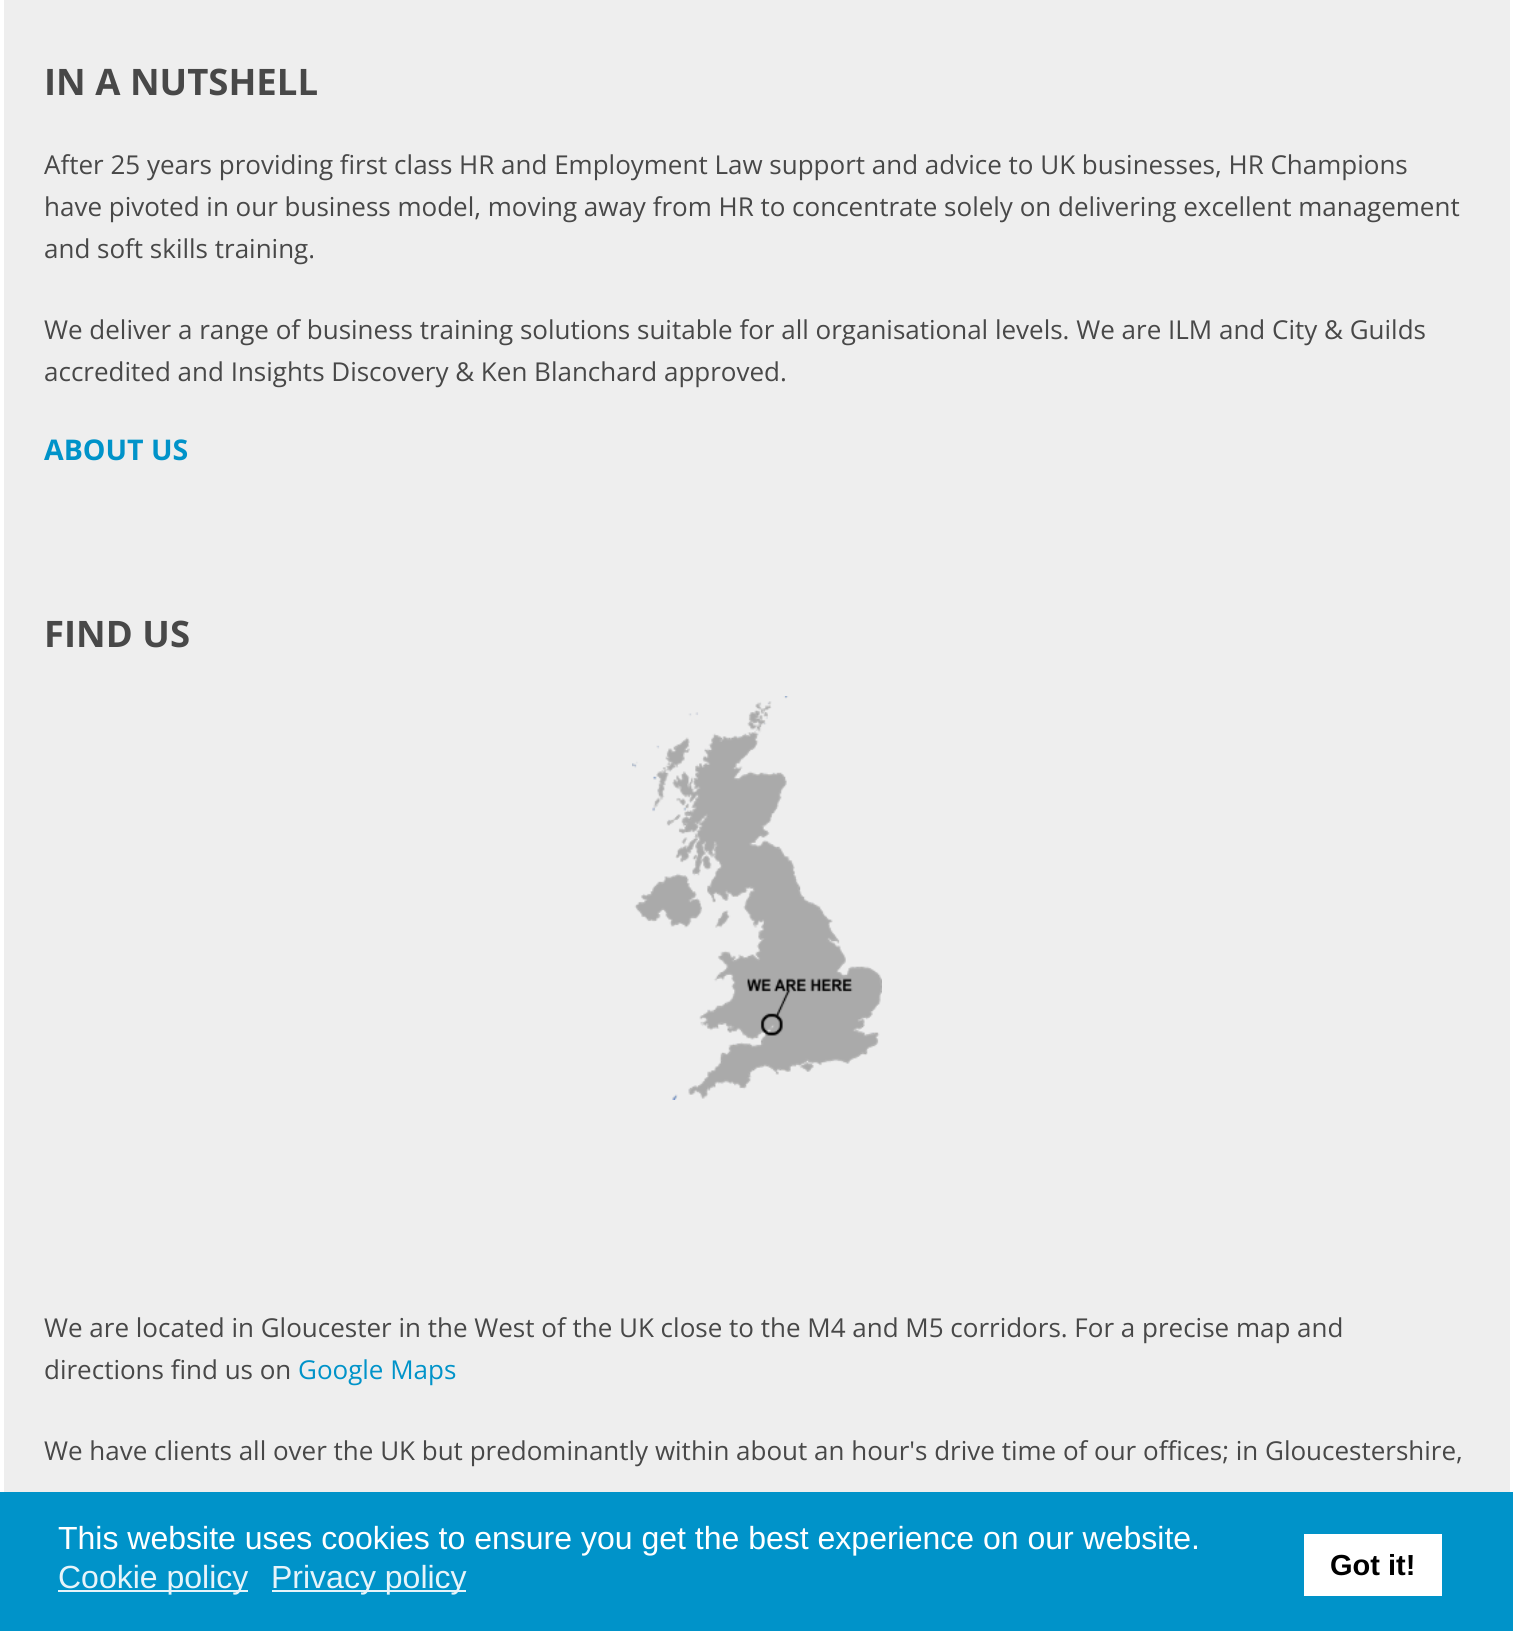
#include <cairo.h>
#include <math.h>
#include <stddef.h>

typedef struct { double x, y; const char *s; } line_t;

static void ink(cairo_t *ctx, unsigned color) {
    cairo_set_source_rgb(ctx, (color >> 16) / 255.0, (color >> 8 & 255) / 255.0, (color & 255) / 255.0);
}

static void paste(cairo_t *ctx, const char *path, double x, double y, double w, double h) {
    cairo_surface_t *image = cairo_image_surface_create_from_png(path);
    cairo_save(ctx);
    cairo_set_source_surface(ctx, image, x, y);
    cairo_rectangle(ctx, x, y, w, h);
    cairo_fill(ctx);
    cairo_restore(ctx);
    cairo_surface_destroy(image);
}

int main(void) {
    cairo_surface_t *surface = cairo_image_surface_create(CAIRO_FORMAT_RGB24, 1513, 1631);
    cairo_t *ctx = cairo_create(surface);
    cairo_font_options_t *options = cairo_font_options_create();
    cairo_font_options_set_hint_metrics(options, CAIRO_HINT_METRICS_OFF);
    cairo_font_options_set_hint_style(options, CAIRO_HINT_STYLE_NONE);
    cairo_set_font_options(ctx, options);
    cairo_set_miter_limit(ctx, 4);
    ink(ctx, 0xFFFFFF);
    cairo_paint(ctx);
    ink(ctx, 0xEEEEEE);
    cairo_rectangle(ctx, 4, 0, 1506, 1492);
    cairo_fill(ctx);
    cairo_select_font_face(ctx, "Open Sans", CAIRO_FONT_SLANT_NORMAL, CAIRO_FONT_WEIGHT_BOLD);
    cairo_set_font_size(ctx, 36.5);
    ink(ctx, 0x484848);
    cairo_move_to(ctx, 44, 95);
    cairo_show_text(ctx, "IN A NUTSHELL");
    cairo_select_font_face(ctx, "Open Sans", CAIRO_FONT_SLANT_NORMAL, CAIRO_FONT_WEIGHT_NORMAL);
    cairo_set_font_size(ctx, 26);
    {
        static const line_t items[] = {
            {44, 174, "After 25 years providing first class HR and Employment Law support and advice to UK businesses, HR Champions"},
            {44, 216, "have pivoted in our business model, moving away from HR to concentrate solely on delivering excellent management"},
            {44, 258, "and soft skills training."},
            {44, 339, "We deliver a range of business training solutions suitable for all organisational levels. We are ILM and City & Guilds"},
            {44, 381, "accredited and Insights Discovery & Ken Blanchard approved."},
        };
        for (size_t i = 0; i < sizeof items / sizeof *items; i++) {
            cairo_move_to(ctx, items[i].x, items[i].y);
            cairo_show_text(ctx, items[i].s);
        }
    }
    cairo_select_font_face(ctx, "Open Sans", CAIRO_FONT_SLANT_NORMAL, CAIRO_FONT_WEIGHT_BOLD);
    cairo_set_font_size(ctx, 28.5);
    ink(ctx, 0x0093C9);
    cairo_move_to(ctx, 44, 460);
    cairo_show_text(ctx, "ABOUT US");
    cairo_set_font_size(ctx, 36.5);
    ink(ctx, 0x484848);
    cairo_move_to(ctx, 44, 647);
    cairo_show_text(ctx, "FIND US");
    paste(ctx, "media/1.png", 632, 696, 250, 404);
    cairo_select_font_face(ctx, "Open Sans", CAIRO_FONT_SLANT_NORMAL, CAIRO_FONT_WEIGHT_NORMAL);
    cairo_set_font_size(ctx, 26);
    cairo_move_to(ctx, 44, 1337);
    cairo_show_text(ctx, "We are located in Gloucester in the West of the UK close to the M4 and M5 corridors. For a precise map and");
    cairo_move_to(ctx, 44, 1379);
    cairo_show_text(ctx, "directions find us on");
    ink(ctx, 0x0093C9);
    cairo_move_to(ctx, 298, 1379);
    cairo_show_text(ctx, "Google Maps");
    ink(ctx, 0x484848);
    cairo_move_to(ctx, 44, 1460);
    cairo_show_text(ctx, "We have clients all over the UK but predominantly within about an hour's drive time of our offices; in Gloucestershire,");
    ink(ctx, 0x0093C9);
    cairo_rectangle(ctx, 0, 1492, 1513, 139);
    cairo_fill(ctx);
    cairo_select_font_face(ctx, "Liberation Sans", CAIRO_FONT_SLANT_NORMAL, CAIRO_FONT_WEIGHT_NORMAL);
    cairo_set_font_size(ctx, 32);
    ink(ctx, 0xFFFFFF);
    cairo_move_to(ctx, 58, 1549);
    cairo_show_text(ctx, "This website uses cookies to ensure you get the best experience on our website.");
    ink(ctx, 0xE6F4FA);
    cairo_rectangle(ctx, 58, 1590, 190, 2);
    cairo_fill(ctx);
    cairo_move_to(ctx, 58, 1588);
    cairo_show_text(ctx, "Cookie policy");
    cairo_rectangle(ctx, 272, 1590, 194, 2);
    cairo_fill(ctx);
    cairo_move_to(ctx, 271, 1588);
    cairo_show_text(ctx, "Privacy policy");
    ink(ctx, 0xFFFFFF);
    cairo_rectangle(ctx, 1304, 1534, 138, 62);
    cairo_fill(ctx);
    cairo_select_font_face(ctx, "Liberation Sans", CAIRO_FONT_SLANT_NORMAL, CAIRO_FONT_WEIGHT_BOLD);
    cairo_set_font_size(ctx, 29);
    ink(ctx, 0x000000);
    cairo_move_to(ctx, 1330, 1575);
    cairo_show_text(ctx, "Got it!");
    cairo_surface_write_to_png(surface, "image.png");
    cairo_font_options_destroy(options);
    cairo_destroy(ctx);
    cairo_surface_destroy(surface);
    return 0;
}
